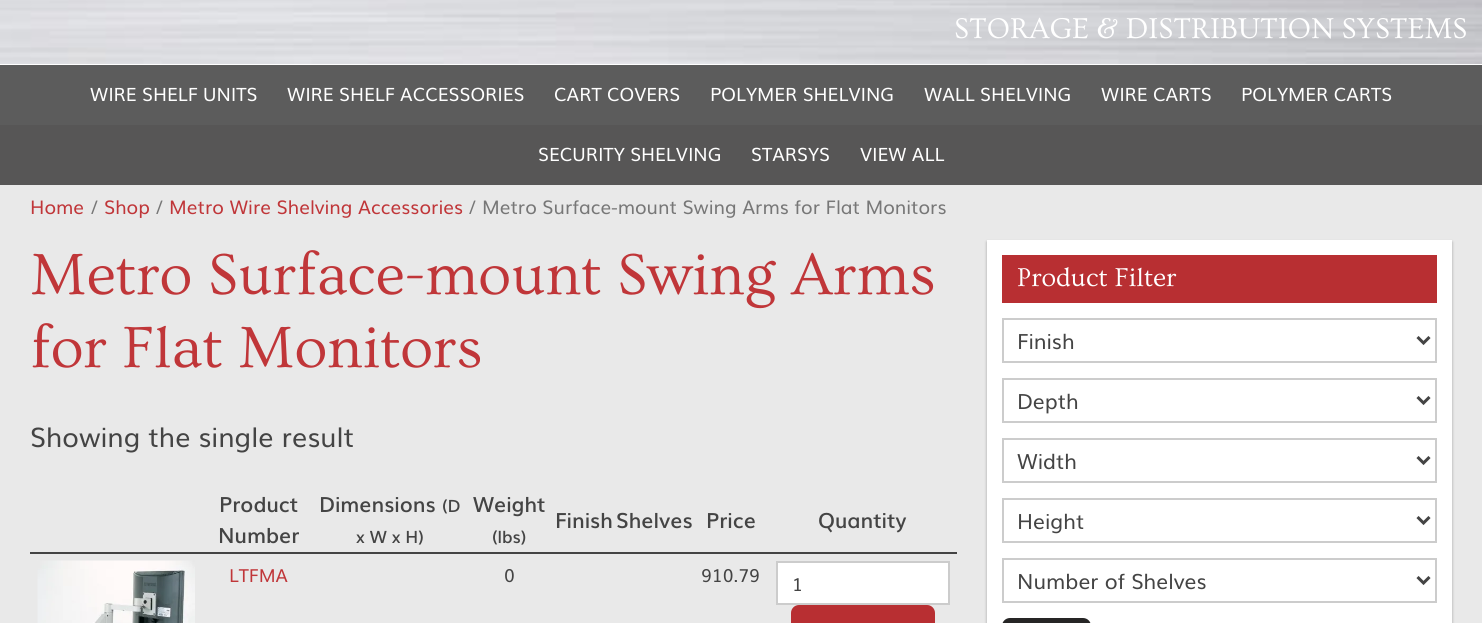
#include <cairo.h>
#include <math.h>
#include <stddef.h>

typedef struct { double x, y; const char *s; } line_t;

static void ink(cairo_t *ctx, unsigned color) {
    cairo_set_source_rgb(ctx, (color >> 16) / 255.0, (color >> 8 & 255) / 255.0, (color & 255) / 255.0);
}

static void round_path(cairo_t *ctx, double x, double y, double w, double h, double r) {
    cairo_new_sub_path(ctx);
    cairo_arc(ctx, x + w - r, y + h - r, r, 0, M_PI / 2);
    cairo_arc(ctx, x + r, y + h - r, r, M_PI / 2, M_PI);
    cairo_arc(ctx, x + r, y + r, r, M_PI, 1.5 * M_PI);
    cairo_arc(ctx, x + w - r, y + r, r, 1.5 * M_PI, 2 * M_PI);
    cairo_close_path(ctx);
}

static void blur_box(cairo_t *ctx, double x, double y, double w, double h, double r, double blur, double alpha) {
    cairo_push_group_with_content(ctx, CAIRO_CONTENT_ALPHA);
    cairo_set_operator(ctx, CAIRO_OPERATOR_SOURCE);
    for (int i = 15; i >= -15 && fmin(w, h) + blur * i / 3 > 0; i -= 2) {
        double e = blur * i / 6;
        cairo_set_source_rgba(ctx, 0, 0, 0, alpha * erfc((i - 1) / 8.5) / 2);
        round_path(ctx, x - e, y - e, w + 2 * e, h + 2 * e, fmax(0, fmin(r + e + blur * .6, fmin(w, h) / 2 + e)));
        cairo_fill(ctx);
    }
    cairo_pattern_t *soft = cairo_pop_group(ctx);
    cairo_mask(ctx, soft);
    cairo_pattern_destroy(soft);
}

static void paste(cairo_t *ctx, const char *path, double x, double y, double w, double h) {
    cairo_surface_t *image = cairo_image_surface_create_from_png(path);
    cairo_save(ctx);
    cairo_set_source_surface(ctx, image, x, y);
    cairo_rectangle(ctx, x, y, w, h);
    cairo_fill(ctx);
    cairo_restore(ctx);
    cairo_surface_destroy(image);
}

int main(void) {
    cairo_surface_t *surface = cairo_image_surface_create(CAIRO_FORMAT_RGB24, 1482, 623);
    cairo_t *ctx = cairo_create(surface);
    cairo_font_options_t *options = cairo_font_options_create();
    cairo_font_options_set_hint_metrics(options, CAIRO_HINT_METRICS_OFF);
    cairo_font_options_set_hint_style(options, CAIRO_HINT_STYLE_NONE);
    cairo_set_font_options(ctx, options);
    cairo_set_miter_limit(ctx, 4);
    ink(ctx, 0xFFFFFF);
    cairo_paint(ctx);
    ink(ctx, 0x5C5C5C);
    cairo_rectangle(ctx, 0, 65, 1482, 60);
    cairo_fill(ctx);
    paste(ctx, "media/1.png", 0, 0, 1482, 64);
    cairo_select_font_face(ctx, "Ovo", CAIRO_FONT_SLANT_NORMAL, CAIRO_FONT_WEIGHT_NORMAL);
    cairo_set_font_size(ctx, 30);
    ink(ctx, 0xFFFFFF);
    cairo_move_to(ctx, 954, 38);
    cairo_show_text(ctx, "STORAGE & DISTRIBUTION SYSTEMS");
    cairo_select_font_face(ctx, "Muli", CAIRO_FONT_SLANT_NORMAL, CAIRO_FONT_WEIGHT_NORMAL);
    cairo_set_font_size(ctx, 18.4);
    {
        static const line_t items[] = {
            {90, 101, "WIRE SHELF UNITS"},
            {287, 101, "WIRE SHELF ACCESSORIES"},
            {554, 101, "CART COVERS"},
            {710, 101, "POLYMER SHELVING"},
            {924, 101, "WALL SHELVING"},
            {1101, 101, "WIRE CARTS"},
            {1241, 101, "POLYMER CARTS"},
        };
        for (size_t i = 0; i < sizeof items / sizeof *items; i++) {
            cairo_move_to(ctx, items[i].x, items[i].y);
            cairo_show_text(ctx, items[i].s);
        }
    }
    ink(ctx, 0x575656);
    cairo_rectangle(ctx, 0, 125, 1482, 60);
    cairo_fill(ctx);
    ink(ctx, 0xFFFFFF);
    {
        static const line_t items[] = {
            {538, 161, "SECURITY SHELVING"},
            {751, 161, "STARSYS"},
            {860, 161, "VIEW ALL"},
        };
        for (size_t i = 0; i < sizeof items / sizeof *items; i++) {
            cairo_move_to(ctx, items[i].x, items[i].y);
            cairo_show_text(ctx, items[i].s);
        }
    }
    ink(ctx, 0xE9E9E9);
    cairo_rectangle(ctx, 0, 185, 1482, 438);
    cairo_fill(ctx);
    cairo_set_font_size(ctx, 18.9);
    ink(ctx, 0xC03639);
    cairo_move_to(ctx, 30, 214);
    cairo_show_text(ctx, "Home");
    ink(ctx, 0x777777);
    cairo_move_to(ctx, 90, 214);
    cairo_show_text(ctx, "/");
    ink(ctx, 0xC03639);
    cairo_move_to(ctx, 104, 214);
    cairo_show_text(ctx, "Shop");
    ink(ctx, 0x777777);
    cairo_move_to(ctx, 155, 214);
    cairo_show_text(ctx, "/");
    ink(ctx, 0xC03639);
    cairo_move_to(ctx, 169, 214);
    cairo_show_text(ctx, "Metro Wire Shelving Accessories");
    ink(ctx, 0x777777);
    cairo_move_to(ctx, 468, 214);
    cairo_show_text(ctx, "/ Metro Surface-mount Swing Arms for Flat Monitors");
    cairo_select_font_face(ctx, "Ovo", CAIRO_FONT_SLANT_NORMAL, CAIRO_FONT_WEIGHT_NORMAL);
    cairo_set_font_size(ctx, 60.75);
    ink(ctx, 0xC03639);
    cairo_move_to(ctx, 30, 294);
    cairo_show_text(ctx, "Metro Surface-mount Swing Arms");
    cairo_move_to(ctx, 30, 367);
    cairo_show_text(ctx, "for Flat Monitors");
    cairo_select_font_face(ctx, "Muli", CAIRO_FONT_SLANT_NORMAL, CAIRO_FONT_WEIGHT_NORMAL);
    cairo_set_font_size(ctx, 27);
    ink(ctx, 0x444444);
    cairo_move_to(ctx, 30, 447);
    cairo_show_text(ctx, "Showing the single result");
    cairo_select_font_face(ctx, "Muli SemiBold", CAIRO_FONT_SLANT_NORMAL, CAIRO_FONT_WEIGHT_NORMAL);
    cairo_set_font_size(ctx, 21);
    {
        static const line_t items[] = {
            {219, 512, "Product"},
            {218, 543, "Number"},
            {319, 512, "Dimensions"},
        };
        for (size_t i = 0; i < sizeof items / sizeof *items; i++) {
            cairo_move_to(ctx, items[i].x, items[i].y);
            cairo_show_text(ctx, items[i].s);
        }
    }
    cairo_set_font_size(ctx, 17);
    cairo_move_to(ctx, 442, 512);
    cairo_show_text(ctx, "(D");
    cairo_move_to(ctx, 356, 543);
    cairo_show_text(ctx, "x W x H)");
    cairo_set_font_size(ctx, 21);
    cairo_move_to(ctx, 473, 512);
    cairo_show_text(ctx, "Weight");
    cairo_set_font_size(ctx, 17);
    cairo_move_to(ctx, 492, 543);
    cairo_show_text(ctx, "(lbs)");
    cairo_set_font_size(ctx, 21);
    {
        static const line_t items[] = {
            {555, 528, "Finish"},
            {616, 528, "Shelves"},
            {706, 528, "Price"},
        };
        for (size_t i = 0; i < sizeof items / sizeof *items; i++) {
            cairo_move_to(ctx, items[i].x, items[i].y);
            cairo_show_text(ctx, items[i].s);
        }
    }
    cairo_rectangle(ctx, 30, 552, 927, 2);
    cairo_fill(ctx);
    cairo_move_to(ctx, 818, 528);
    cairo_show_text(ctx, "Quantity");
    paste(ctx, "media/2.png", 37, 560, 158, 63);
    cairo_select_font_face(ctx, "Muli", CAIRO_FONT_SLANT_NORMAL, CAIRO_FONT_WEIGHT_NORMAL);
    cairo_set_font_size(ctx, 18);
    ink(ctx, 0xC03639);
    cairo_move_to(ctx, 229, 582);
    cairo_show_text(ctx, "LTFMA");
    ink(ctx, 0x444444);
    cairo_move_to(ctx, 504, 582);
    cairo_show_text(ctx, "0");
    cairo_move_to(ctx, 701, 582);
    cairo_show_text(ctx, "910.79");
    ink(ctx, 0xFFFFFF);
    cairo_rectangle(ctx, 777, 562, 172, 42);
    cairo_fill_preserve(ctx);
    ink(ctx, 0xCCCCCC);
    cairo_stroke(ctx);
    ink(ctx, 0x444444);
    cairo_move_to(ctx, 792, 591);
    cairo_show_text(ctx, "1");
    ink(ctx, 0xB82F32);
    round_path(ctx, 791, 605, 144, 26, 8);
    cairo_fill(ctx);
    ink(ctx, 0x000000);
    blur_box(ctx, 987, 242, 465, 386, 0, 1.5, 0.3);
    ink(ctx, 0xFFFFFF);
    cairo_rectangle(ctx, 987, 240, 465, 383);
    cairo_fill(ctx);
    ink(ctx, 0xB82F32);
    cairo_rectangle(ctx, 1002, 255, 435, 48);
    cairo_fill(ctx);
    cairo_select_font_face(ctx, "Ovo", CAIRO_FONT_SLANT_NORMAL, CAIRO_FONT_WEIGHT_NORMAL);
    cairo_set_font_size(ctx, 27);
    ink(ctx, 0xFFFFFF);
    cairo_move_to(ctx, 1017, 286);
    cairo_show_text(ctx, "Product Filter");
    cairo_rectangle(ctx, 1003, 319, 433, 43);
    ink(ctx, 0xCCCCCC);
    cairo_stroke(ctx);
    cairo_new_path(ctx);
    cairo_move_to(ctx, 1417.5, 337);
    cairo_line_to(ctx, 1423.5, 343);
    cairo_line_to(ctx, 1429.5, 337);
    ink(ctx, 0x444444);
    cairo_set_line_width(ctx, 3);
    cairo_stroke(ctx);
    cairo_select_font_face(ctx, "Muli", CAIRO_FONT_SLANT_NORMAL, CAIRO_FONT_WEIGHT_NORMAL);
    cairo_set_font_size(ctx, 21);
    cairo_move_to(ctx, 1017, 349);
    cairo_show_text(ctx, "Finish");
    cairo_rectangle(ctx, 1003, 379, 433, 43);
    ink(ctx, 0xCCCCCC);
    cairo_set_line_width(ctx, 2);
    cairo_stroke(ctx);
    cairo_new_path(ctx);
    cairo_move_to(ctx, 1417.5, 397);
    cairo_line_to(ctx, 1423.5, 403);
    cairo_line_to(ctx, 1429.5, 397);
    ink(ctx, 0x444444);
    cairo_set_line_width(ctx, 3);
    cairo_stroke(ctx);
    cairo_move_to(ctx, 1017, 409);
    cairo_show_text(ctx, "Depth");
    cairo_rectangle(ctx, 1003, 439, 433, 43);
    ink(ctx, 0xCCCCCC);
    cairo_set_line_width(ctx, 2);
    cairo_stroke(ctx);
    cairo_new_path(ctx);
    cairo_move_to(ctx, 1417.5, 457);
    cairo_line_to(ctx, 1423.5, 463);
    cairo_line_to(ctx, 1429.5, 457);
    ink(ctx, 0x444444);
    cairo_set_line_width(ctx, 3);
    cairo_stroke(ctx);
    cairo_move_to(ctx, 1017, 469);
    cairo_show_text(ctx, "Width");
    cairo_rectangle(ctx, 1003, 499, 433, 43);
    ink(ctx, 0xCCCCCC);
    cairo_set_line_width(ctx, 2);
    cairo_stroke(ctx);
    cairo_new_path(ctx);
    cairo_move_to(ctx, 1417.5, 517);
    cairo_line_to(ctx, 1423.5, 523);
    cairo_line_to(ctx, 1429.5, 517);
    ink(ctx, 0x444444);
    cairo_set_line_width(ctx, 3);
    cairo_stroke(ctx);
    cairo_move_to(ctx, 1017, 529);
    cairo_show_text(ctx, "Height");
    cairo_rectangle(ctx, 1003, 559, 433, 43);
    ink(ctx, 0xCCCCCC);
    cairo_set_line_width(ctx, 2);
    cairo_stroke(ctx);
    cairo_new_path(ctx);
    cairo_move_to(ctx, 1417.5, 577);
    cairo_line_to(ctx, 1423.5, 583);
    cairo_line_to(ctx, 1429.5, 577);
    ink(ctx, 0x444444);
    cairo_set_line_width(ctx, 3);
    cairo_stroke(ctx);
    cairo_move_to(ctx, 1017, 589);
    cairo_show_text(ctx, "Number of Shelves");
    ink(ctx, 0x262525);
    round_path(ctx, 1002, 618, 89, 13, 8);
    cairo_fill(ctx);
    cairo_surface_write_to_png(surface, "image.png");
    cairo_font_options_destroy(options);
    cairo_destroy(ctx);
    cairo_surface_destroy(surface);
    return 0;
}
